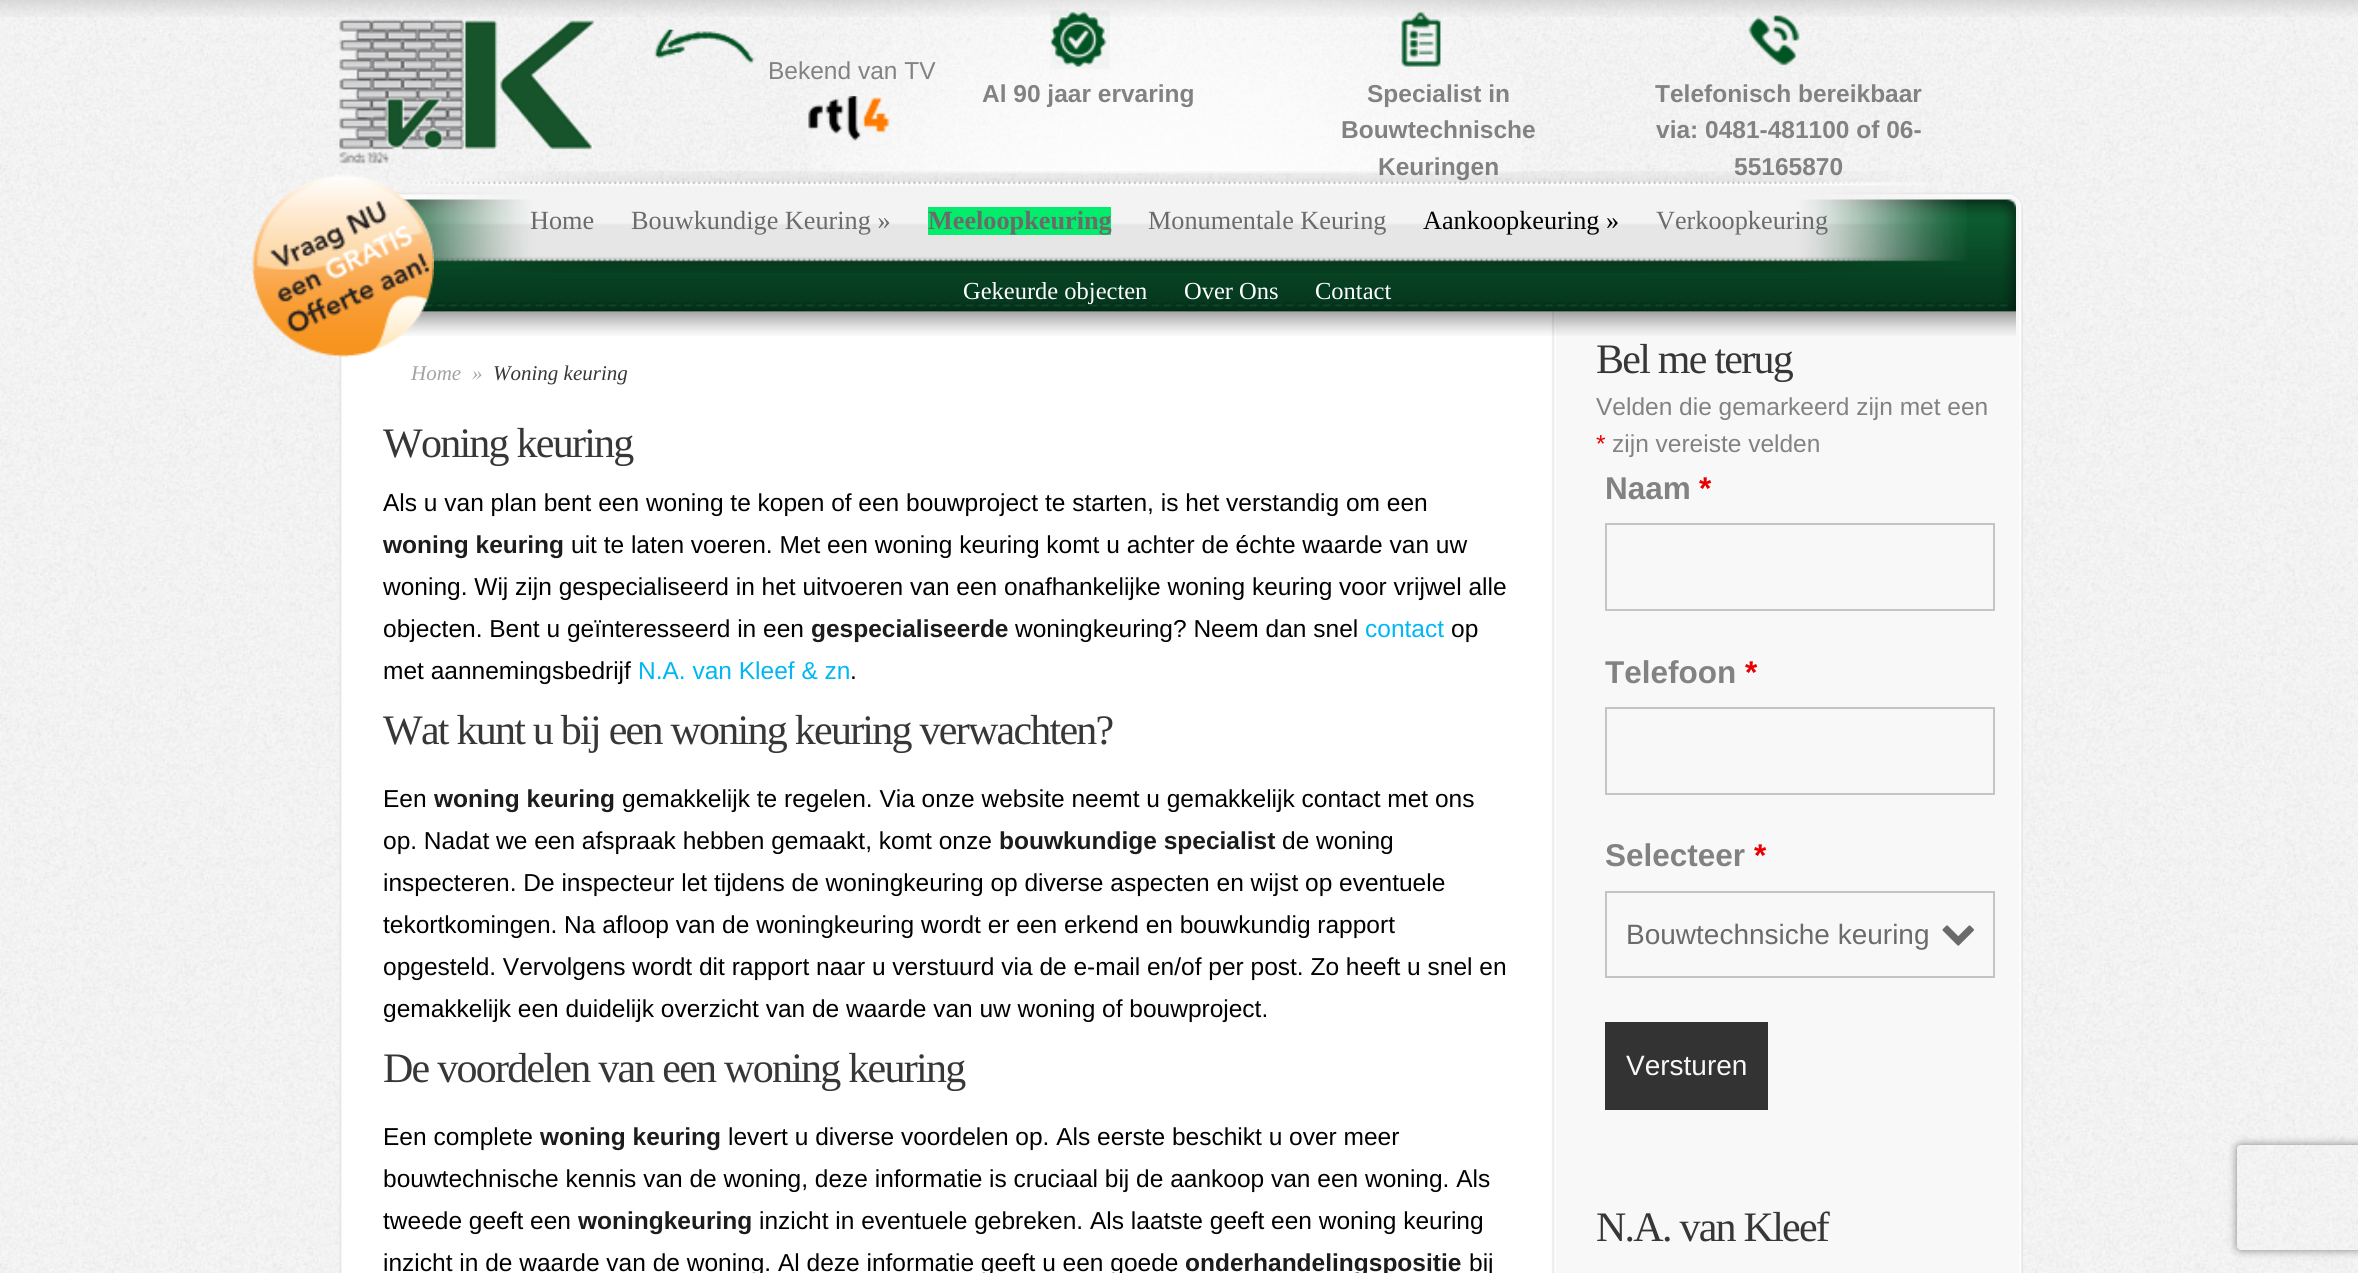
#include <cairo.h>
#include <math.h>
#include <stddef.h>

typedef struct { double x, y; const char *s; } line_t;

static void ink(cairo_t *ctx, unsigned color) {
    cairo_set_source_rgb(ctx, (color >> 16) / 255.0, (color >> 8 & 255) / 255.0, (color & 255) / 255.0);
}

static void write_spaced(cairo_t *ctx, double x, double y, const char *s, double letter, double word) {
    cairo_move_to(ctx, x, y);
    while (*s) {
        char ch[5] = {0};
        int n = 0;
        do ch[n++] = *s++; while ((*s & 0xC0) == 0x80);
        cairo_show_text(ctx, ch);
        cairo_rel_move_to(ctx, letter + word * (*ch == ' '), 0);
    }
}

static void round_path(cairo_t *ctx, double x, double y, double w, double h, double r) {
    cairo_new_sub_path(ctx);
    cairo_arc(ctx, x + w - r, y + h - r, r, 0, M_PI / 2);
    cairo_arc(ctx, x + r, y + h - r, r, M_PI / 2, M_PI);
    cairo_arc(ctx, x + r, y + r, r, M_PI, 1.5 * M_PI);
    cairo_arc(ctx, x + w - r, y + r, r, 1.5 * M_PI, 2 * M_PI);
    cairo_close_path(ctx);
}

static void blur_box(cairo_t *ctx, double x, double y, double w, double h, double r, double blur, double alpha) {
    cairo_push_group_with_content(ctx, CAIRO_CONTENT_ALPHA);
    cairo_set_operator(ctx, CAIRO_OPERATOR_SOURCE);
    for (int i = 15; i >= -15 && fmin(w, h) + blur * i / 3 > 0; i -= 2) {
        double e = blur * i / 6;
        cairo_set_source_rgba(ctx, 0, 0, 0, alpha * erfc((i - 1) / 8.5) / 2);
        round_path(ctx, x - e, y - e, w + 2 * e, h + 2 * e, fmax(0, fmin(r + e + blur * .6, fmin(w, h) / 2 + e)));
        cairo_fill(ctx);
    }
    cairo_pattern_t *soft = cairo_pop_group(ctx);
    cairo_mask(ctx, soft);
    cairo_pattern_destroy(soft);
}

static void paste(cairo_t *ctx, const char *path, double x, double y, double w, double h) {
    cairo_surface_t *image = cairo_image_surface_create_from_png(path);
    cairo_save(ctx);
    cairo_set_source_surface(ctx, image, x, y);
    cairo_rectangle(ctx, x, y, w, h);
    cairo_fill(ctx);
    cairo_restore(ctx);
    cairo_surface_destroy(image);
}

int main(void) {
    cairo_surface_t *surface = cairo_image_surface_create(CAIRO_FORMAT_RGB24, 2358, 1273);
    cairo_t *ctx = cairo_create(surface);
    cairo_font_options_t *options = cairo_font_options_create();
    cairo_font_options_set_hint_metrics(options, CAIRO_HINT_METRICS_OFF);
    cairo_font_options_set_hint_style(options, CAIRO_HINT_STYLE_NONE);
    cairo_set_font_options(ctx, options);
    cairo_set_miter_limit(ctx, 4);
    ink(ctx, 0xFFFFFF);
    cairo_paint(ctx);
    paste(ctx, "media/1.png", 0, 0, 2358, 1273);
    paste(ctx, "media/2.png", 0, 0, 2358, 17);
    paste(ctx, "media/3.png", 811, 0, 711, 174);
    paste(ctx, "media/4.png", 339, 19, 256, 145);
    paste(ctx, "media/5.png", 654, 29, 101, 35);
    cairo_select_font_face(ctx, "Liberation Sans", CAIRO_FONT_SLANT_NORMAL, CAIRO_FONT_WEIGHT_NORMAL);
    cairo_set_font_size(ctx, 24.5);
    ink(ctx, 0x828282);
    cairo_move_to(ctx, 768, 79);
    cairo_show_text(ctx, "Bekend van TV");
    paste(ctx, "media/6.png", 808, 96, 82, 45);
    paste(ctx, "media/7.png", 1050, 10, 60, 59);
    cairo_select_font_face(ctx, "Liberation Sans", CAIRO_FONT_SLANT_NORMAL, CAIRO_FONT_WEIGHT_BOLD);
    cairo_move_to(ctx, 982, 102);
    cairo_show_text(ctx, "Al 90 jaar ervaring");
    paste(ctx, "media/8.png", 1401, 11, 40, 56);
    {
        static const line_t items[] = {
            {1367, 102, "Specialist in"},
            {1341, 138, "Bouwtechnische"},
            {1378, 175, "Keuringen"},
        };
        for (size_t i = 0; i < sizeof items / sizeof *items; i++) {
            cairo_move_to(ctx, items[i].x, items[i].y);
            cairo_show_text(ctx, items[i].s);
        }
    }
    paste(ctx, "media/9.png", 1748, 15, 52, 51);
    {
        static const line_t items[] = {
            {1655, 102, "Telefonisch bereikbaar"},
            {1656, 138, "via: 0481-481100 of 06-"},
            {1734, 175, "55165870"},
        };
        for (size_t i = 0; i < sizeof items / sizeof *items; i++) {
            cairo_move_to(ctx, items[i].x, items[i].y);
            cairo_show_text(ctx, items[i].s);
        }
    }
    paste(ctx, "media/12.png", 393, 192, 1630, 120);
    paste(ctx, "media/15.png", 339, 311, 1684, 962);
    paste(ctx, "media/13.png", 402, 199, 1614, 113);
    paste(ctx, "media/11.png", 371, 171, 1596, 102);
    paste(ctx, "media/14.png", 397, 311, 1619, 25);
    paste(ctx, "media/10.png", 252, 175, 182, 182);
    cairo_select_font_face(ctx, "Liberation Serif", CAIRO_FONT_SLANT_NORMAL, CAIRO_FONT_WEIGHT_NORMAL);
    cairo_set_font_size(ctx, 26.25);
    ink(ctx, 0x6B6B6B);
    cairo_move_to(ctx, 530, 229);
    cairo_show_text(ctx, "Home");
    cairo_move_to(ctx, 631, 229);
    cairo_show_text(ctx, "Bouwkundige Keuring »");
    ink(ctx, 0x02ED6B);
    cairo_rectangle(ctx, 928, 207, 183, 28);
    cairo_fill(ctx);
    cairo_select_font_face(ctx, "Liberation Serif", CAIRO_FONT_SLANT_NORMAL, CAIRO_FONT_WEIGHT_BOLD);
    ink(ctx, 0x6B6B6B);
    cairo_move_to(ctx, 928, 229);
    cairo_show_text(ctx, "Meeloopkeuring");
    cairo_select_font_face(ctx, "Liberation Serif", CAIRO_FONT_SLANT_NORMAL, CAIRO_FONT_WEIGHT_NORMAL);
    cairo_move_to(ctx, 1148, 229);
    cairo_show_text(ctx, "Monumentale Keuring");
    ink(ctx, 0x000000);
    cairo_move_to(ctx, 1423, 229);
    cairo_show_text(ctx, "Aankoopkeuring »");
    ink(ctx, 0x6B6B6B);
    cairo_move_to(ctx, 1656, 229);
    cairo_show_text(ctx, "Verkoopkeuring");
    cairo_set_font_size(ctx, 24.5);
    ink(ctx, 0xFFFFFF);
    {
        static const line_t items[] = {
            {963, 299, "Gekeurde objecten"},
            {1184, 299, "Over Ons"},
            {1315, 299, "Contact"},
        };
        for (size_t i = 0; i < sizeof items / sizeof *items; i++) {
            cairo_move_to(ctx, items[i].x, items[i].y);
            cairo_show_text(ctx, items[i].s);
        }
    }
    cairo_select_font_face(ctx, "Liberation Serif", CAIRO_FONT_SLANT_ITALIC, CAIRO_FONT_WEIGHT_NORMAL);
    cairo_set_font_size(ctx, 21);
    ink(ctx, 0xA3A3A3);
    cairo_move_to(ctx, 411, 380);
    cairo_show_text(ctx, "Home");
    cairo_move_to(ctx, 472, 380);
    cairo_show_text(ctx, "»");
    ink(ctx, 0x373737);
    cairo_move_to(ctx, 493, 380);
    cairo_show_text(ctx, "Woning keuring");
    cairo_select_font_face(ctx, "Liberation Serif", CAIRO_FONT_SLANT_NORMAL, CAIRO_FONT_WEIGHT_NORMAL);
    cairo_set_font_size(ctx, 42);
    write_spaced(ctx, 383, 457, "Woning keuring", -1.75, 0);
    cairo_select_font_face(ctx, "Liberation Sans", CAIRO_FONT_SLANT_NORMAL, CAIRO_FONT_WEIGHT_NORMAL);
    cairo_set_font_size(ctx, 24.5);
    ink(ctx, 0x000000);
    cairo_move_to(ctx, 383, 511);
    cairo_show_text(ctx, "Als u van plan bent een woning te kopen of een bouwproject te starten, is het verstandig om een");
    cairo_select_font_face(ctx, "Liberation Sans", CAIRO_FONT_SLANT_NORMAL, CAIRO_FONT_WEIGHT_BOLD);
    ink(ctx, 0x1C1C1C);
    cairo_move_to(ctx, 383, 553);
    cairo_show_text(ctx, "woning keuring");
    cairo_select_font_face(ctx, "Liberation Sans", CAIRO_FONT_SLANT_NORMAL, CAIRO_FONT_WEIGHT_NORMAL);
    ink(ctx, 0x000000);
    {
        static const line_t items[] = {
            {571, 553, "uit te laten voeren. Met een woning keuring komt u achter de échte waarde van uw"},
            {383, 595, "woning. Wij zijn gespecialiseerd in het uitvoeren van een onafhankelijke woning keuring voor vrijwel alle"},
            {383, 637, "objecten. Bent u geïnteresseerd in een"},
        };
        for (size_t i = 0; i < sizeof items / sizeof *items; i++) {
            cairo_move_to(ctx, items[i].x, items[i].y);
            cairo_show_text(ctx, items[i].s);
        }
    }
    cairo_select_font_face(ctx, "Liberation Sans", CAIRO_FONT_SLANT_NORMAL, CAIRO_FONT_WEIGHT_BOLD);
    ink(ctx, 0x1C1C1C);
    cairo_move_to(ctx, 811, 637);
    cairo_show_text(ctx, "gespecialiseerde");
    cairo_select_font_face(ctx, "Liberation Sans", CAIRO_FONT_SLANT_NORMAL, CAIRO_FONT_WEIGHT_NORMAL);
    ink(ctx, 0x000000);
    cairo_move_to(ctx, 1015, 637);
    cairo_show_text(ctx, "woningkeuring? Neem dan snel");
    ink(ctx, 0x00B7F3);
    cairo_move_to(ctx, 1365, 637);
    cairo_show_text(ctx, "contact");
    ink(ctx, 0x000000);
    cairo_move_to(ctx, 1451, 637);
    cairo_show_text(ctx, "op");
    cairo_move_to(ctx, 383, 679);
    cairo_show_text(ctx, "met aannemingsbedrijf");
    ink(ctx, 0x00B7F3);
    cairo_move_to(ctx, 638, 679);
    cairo_show_text(ctx, "N.A. van Kleef & zn");
    ink(ctx, 0x000000);
    cairo_move_to(ctx, 850, 679);
    cairo_show_text(ctx, ".");
    cairo_select_font_face(ctx, "Liberation Serif", CAIRO_FONT_SLANT_NORMAL, CAIRO_FONT_WEIGHT_NORMAL);
    cairo_set_font_size(ctx, 42);
    ink(ctx, 0x373737);
    write_spaced(ctx, 383, 744, "Wat kunt u bij een woning keuring verwachten?", -1.75, 0);
    cairo_select_font_face(ctx, "Liberation Sans", CAIRO_FONT_SLANT_NORMAL, CAIRO_FONT_WEIGHT_NORMAL);
    cairo_set_font_size(ctx, 24.5);
    ink(ctx, 0x000000);
    cairo_move_to(ctx, 383, 807);
    cairo_show_text(ctx, "Een");
    cairo_select_font_face(ctx, "Liberation Sans", CAIRO_FONT_SLANT_NORMAL, CAIRO_FONT_WEIGHT_BOLD);
    ink(ctx, 0x1C1C1C);
    cairo_move_to(ctx, 434, 807);
    cairo_show_text(ctx, "woning keuring");
    cairo_select_font_face(ctx, "Liberation Sans", CAIRO_FONT_SLANT_NORMAL, CAIRO_FONT_WEIGHT_NORMAL);
    ink(ctx, 0x000000);
    cairo_move_to(ctx, 622, 807);
    cairo_show_text(ctx, "gemakkelijk te regelen. Via onze website neemt u gemakkelijk contact met ons");
    cairo_move_to(ctx, 383, 849);
    cairo_show_text(ctx, "op. Nadat we een afspraak hebben gemaakt, komt onze");
    cairo_select_font_face(ctx, "Liberation Sans", CAIRO_FONT_SLANT_NORMAL, CAIRO_FONT_WEIGHT_BOLD);
    ink(ctx, 0x1C1C1C);
    cairo_move_to(ctx, 999, 849);
    cairo_show_text(ctx, "bouwkundige specialist");
    cairo_select_font_face(ctx, "Liberation Sans", CAIRO_FONT_SLANT_NORMAL, CAIRO_FONT_WEIGHT_NORMAL);
    ink(ctx, 0x000000);
    {
        static const line_t items[] = {
            {1282, 849, "de woning"},
            {383, 891, "inspecteren. De inspecteur let tijdens de woningkeuring op diverse aspecten en wijst op eventuele"},
            {383, 933, "tekortkomingen. Na afloop van de woningkeuring wordt er een erkend en bouwkundig rapport"},
            {383, 975, "opgesteld. Vervolgens wordt dit rapport naar u verstuurd via de e-mail en/of per post. Zo heeft u snel en"},
            {383, 1017, "gemakkelijk een duidelijk overzicht van de waarde van uw woning of bouwproject."},
        };
        for (size_t i = 0; i < sizeof items / sizeof *items; i++) {
            cairo_move_to(ctx, items[i].x, items[i].y);
            cairo_show_text(ctx, items[i].s);
        }
    }
    cairo_select_font_face(ctx, "Liberation Serif", CAIRO_FONT_SLANT_NORMAL, CAIRO_FONT_WEIGHT_NORMAL);
    cairo_set_font_size(ctx, 42);
    ink(ctx, 0x373737);
    write_spaced(ctx, 383, 1082, "De voordelen van een woning keuring", -1.75, 0);
    cairo_select_font_face(ctx, "Liberation Sans", CAIRO_FONT_SLANT_NORMAL, CAIRO_FONT_WEIGHT_NORMAL);
    cairo_set_font_size(ctx, 24.5);
    ink(ctx, 0x000000);
    cairo_move_to(ctx, 383, 1145);
    cairo_show_text(ctx, "Een complete");
    cairo_select_font_face(ctx, "Liberation Sans", CAIRO_FONT_SLANT_NORMAL, CAIRO_FONT_WEIGHT_BOLD);
    ink(ctx, 0x1C1C1C);
    cairo_move_to(ctx, 540, 1145);
    cairo_show_text(ctx, "woning keuring");
    cairo_select_font_face(ctx, "Liberation Sans", CAIRO_FONT_SLANT_NORMAL, CAIRO_FONT_WEIGHT_NORMAL);
    ink(ctx, 0x000000);
    {
        static const line_t items[] = {
            {728, 1145, "levert u diverse voordelen op. Als eerste beschikt u over meer"},
            {383, 1187, "bouwtechnische kennis van de woning, deze informatie is cruciaal bij de aankoop van een woning. Als"},
            {383, 1229, "tweede geeft een"},
        };
        for (size_t i = 0; i < sizeof items / sizeof *items; i++) {
            cairo_move_to(ctx, items[i].x, items[i].y);
            cairo_show_text(ctx, items[i].s);
        }
    }
    cairo_select_font_face(ctx, "Liberation Sans", CAIRO_FONT_SLANT_NORMAL, CAIRO_FONT_WEIGHT_BOLD);
    ink(ctx, 0x1C1C1C);
    cairo_move_to(ctx, 578, 1229);
    cairo_show_text(ctx, "woningkeuring");
    cairo_select_font_face(ctx, "Liberation Sans", CAIRO_FONT_SLANT_NORMAL, CAIRO_FONT_WEIGHT_NORMAL);
    ink(ctx, 0x000000);
    cairo_move_to(ctx, 759, 1229);
    cairo_show_text(ctx, "inzicht in eventuele gebreken. Als laatste geeft een woning keuring");
    cairo_move_to(ctx, 383, 1271);
    cairo_show_text(ctx, "inzicht in de waarde van de woning. Al deze informatie geeft u een goede");
    cairo_select_font_face(ctx, "Liberation Sans", CAIRO_FONT_SLANT_NORMAL, CAIRO_FONT_WEIGHT_BOLD);
    ink(ctx, 0x1C1C1C);
    cairo_move_to(ctx, 1185, 1271);
    cairo_show_text(ctx, "onderhandelingspositie");
    cairo_select_font_face(ctx, "Liberation Sans", CAIRO_FONT_SLANT_NORMAL, CAIRO_FONT_WEIGHT_NORMAL);
    ink(ctx, 0x000000);
    cairo_move_to(ctx, 1469, 1271);
    cairo_show_text(ctx, "bij");
    cairo_select_font_face(ctx, "Liberation Serif", CAIRO_FONT_SLANT_NORMAL, CAIRO_FONT_WEIGHT_NORMAL);
    cairo_set_font_size(ctx, 42);
    ink(ctx, 0x373737);
    write_spaced(ctx, 1596, 373, "Bel me terug", -1.75, 0);
    cairo_select_font_face(ctx, "Liberation Sans", CAIRO_FONT_SLANT_NORMAL, CAIRO_FONT_WEIGHT_NORMAL);
    cairo_set_font_size(ctx, 24.5);
    ink(ctx, 0x828282);
    cairo_move_to(ctx, 1596, 415);
    cairo_show_text(ctx, "Velden die gemarkeerd zijn met een");
    ink(ctx, 0xE80000);
    cairo_move_to(ctx, 1596, 452);
    cairo_show_text(ctx, "*");
    ink(ctx, 0x828282);
    cairo_move_to(ctx, 1612, 452);
    cairo_show_text(ctx, "zijn vereiste velden");
    cairo_select_font_face(ctx, "Liberation Sans", CAIRO_FONT_SLANT_NORMAL, CAIRO_FONT_WEIGHT_BOLD);
    cairo_set_font_size(ctx, 31.5);
    cairo_move_to(ctx, 1605, 499);
    cairo_show_text(ctx, "Naam");
    ink(ctx, 0xE80000);
    cairo_move_to(ctx, 1699, 499);
    cairo_show_text(ctx, "*");
    cairo_rectangle(ctx, 1606, 524, 388, 86);
    ink(ctx, 0xC4C4C4);
    cairo_stroke(ctx);
    ink(ctx, 0x828282);
    cairo_move_to(ctx, 1605, 683);
    cairo_show_text(ctx, "Telefoon");
    ink(ctx, 0xE80000);
    cairo_move_to(ctx, 1745, 683);
    cairo_show_text(ctx, "*");
    cairo_rectangle(ctx, 1606, 708, 388, 86);
    ink(ctx, 0xC4C4C4);
    cairo_stroke(ctx);
    ink(ctx, 0x828282);
    cairo_move_to(ctx, 1605, 866);
    cairo_show_text(ctx, "Selecteer");
    ink(ctx, 0xE80000);
    cairo_move_to(ctx, 1754, 866);
    cairo_show_text(ctx, "*");
    cairo_rectangle(ctx, 1606, 892, 388, 85);
    ink(ctx, 0xC4C4C4);
    cairo_stroke(ctx);
    paste(ctx, "media/16.png", 1942, 925, 32, 21);
    cairo_select_font_face(ctx, "Liberation Sans", CAIRO_FONT_SLANT_NORMAL, CAIRO_FONT_WEIGHT_NORMAL);
    cairo_set_font_size(ctx, 28);
    ink(ctx, 0x6B6B6B);
    cairo_move_to(ctx, 1626, 944);
    cairo_show_text(ctx, "Bouwtechnsiche keuring");
    ink(ctx, 0x333333);
    cairo_rectangle(ctx, 1605, 1022, 163, 88);
    cairo_fill(ctx);
    ink(ctx, 0xF7F7F7);
    cairo_move_to(ctx, 1626, 1075);
    cairo_show_text(ctx, "Versturen");
    cairo_save(ctx);
    cairo_set_fill_rule(ctx, CAIRO_FILL_RULE_EVEN_ODD);
    cairo_new_path(ctx);
    cairo_move_to(ctx, 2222, 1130);
    cairo_line_to(ctx, 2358, 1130);
    cairo_line_to(ctx, 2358, 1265);
    cairo_line_to(ctx, 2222, 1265);
    cairo_close_path(ctx);
    cairo_move_to(ctx, 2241, 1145);
    cairo_line_to(ctx, 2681, 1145);
    cairo_curve_to(ctx, 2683, 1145, 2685, 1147, 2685, 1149);
    cairo_line_to(ctx, 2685, 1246);
    cairo_curve_to(ctx, 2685, 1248, 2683, 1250, 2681, 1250);
    cairo_line_to(ctx, 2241, 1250);
    cairo_curve_to(ctx, 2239, 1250, 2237, 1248, 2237, 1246);
    cairo_line_to(ctx, 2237, 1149);
    cairo_curve_to(ctx, 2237, 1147, 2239, 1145, 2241, 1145);
    cairo_close_path(ctx);
    cairo_clip(ctx);
    ink(ctx, 0x808080);
    blur_box(ctx, 2237, 1145, 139, 105, 4, 4.5, 1);
    cairo_restore(ctx);
    cairo_select_font_face(ctx, "Liberation Serif", CAIRO_FONT_SLANT_NORMAL, CAIRO_FONT_WEIGHT_NORMAL);
    cairo_set_font_size(ctx, 42);
    ink(ctx, 0x373737);
    write_spaced(ctx, 1596, 1241, "N.A. van Kleef", -1.75, 0);
    cairo_surface_write_to_png(surface, "image.png");
    cairo_font_options_destroy(options);
    cairo_destroy(ctx);
    cairo_surface_destroy(surface);
    return 0;
}
